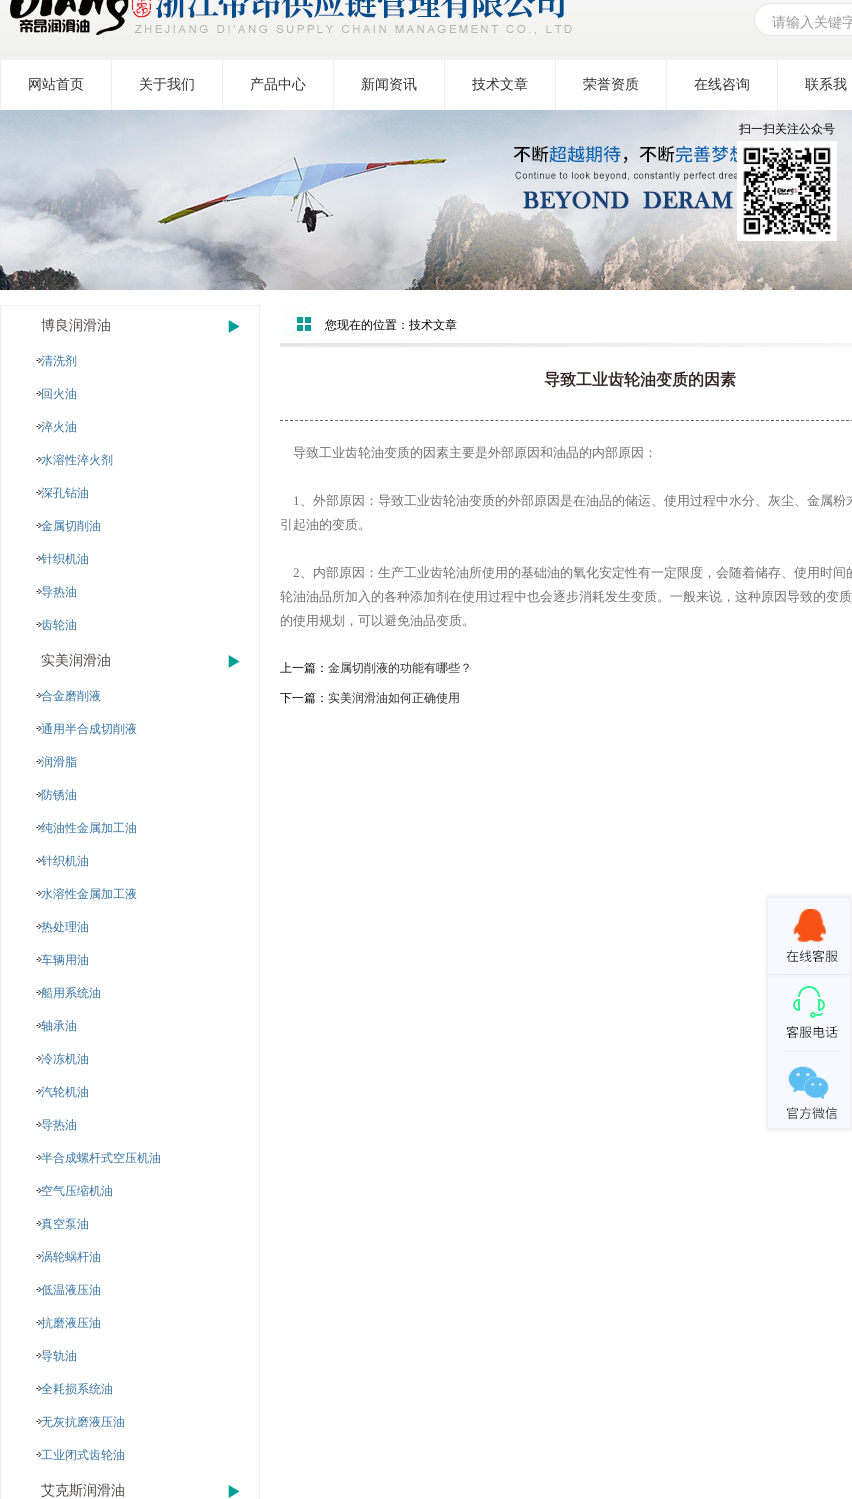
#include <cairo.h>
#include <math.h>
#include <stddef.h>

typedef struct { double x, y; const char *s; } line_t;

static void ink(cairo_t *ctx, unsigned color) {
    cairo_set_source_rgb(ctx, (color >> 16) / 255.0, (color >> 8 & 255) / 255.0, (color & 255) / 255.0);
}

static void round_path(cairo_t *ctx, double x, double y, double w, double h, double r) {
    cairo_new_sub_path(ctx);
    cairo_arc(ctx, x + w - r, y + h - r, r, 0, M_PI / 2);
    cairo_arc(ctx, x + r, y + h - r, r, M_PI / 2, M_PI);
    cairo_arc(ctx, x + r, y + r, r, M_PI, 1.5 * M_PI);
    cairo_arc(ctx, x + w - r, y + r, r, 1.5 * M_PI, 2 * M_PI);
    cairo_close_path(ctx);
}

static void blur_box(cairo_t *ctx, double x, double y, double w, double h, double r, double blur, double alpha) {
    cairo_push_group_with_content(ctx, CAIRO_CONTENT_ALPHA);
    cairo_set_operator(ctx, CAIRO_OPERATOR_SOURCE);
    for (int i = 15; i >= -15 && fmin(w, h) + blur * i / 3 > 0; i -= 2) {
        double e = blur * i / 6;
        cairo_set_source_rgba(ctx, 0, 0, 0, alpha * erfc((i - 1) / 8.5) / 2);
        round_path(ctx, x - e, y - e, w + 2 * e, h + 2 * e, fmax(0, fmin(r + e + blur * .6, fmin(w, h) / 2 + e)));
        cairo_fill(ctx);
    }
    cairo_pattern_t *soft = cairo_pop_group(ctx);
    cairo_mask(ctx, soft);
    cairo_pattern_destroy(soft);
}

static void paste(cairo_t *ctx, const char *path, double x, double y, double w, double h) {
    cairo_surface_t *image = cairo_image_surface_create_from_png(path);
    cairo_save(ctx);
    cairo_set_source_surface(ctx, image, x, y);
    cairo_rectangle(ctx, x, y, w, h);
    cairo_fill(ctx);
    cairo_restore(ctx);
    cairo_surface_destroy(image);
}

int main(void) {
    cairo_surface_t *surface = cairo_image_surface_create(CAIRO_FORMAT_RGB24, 852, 1499);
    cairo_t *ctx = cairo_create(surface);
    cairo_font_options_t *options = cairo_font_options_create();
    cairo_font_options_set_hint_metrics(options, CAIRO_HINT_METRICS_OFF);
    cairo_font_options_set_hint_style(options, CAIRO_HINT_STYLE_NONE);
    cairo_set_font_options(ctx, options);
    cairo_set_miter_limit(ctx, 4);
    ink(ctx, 0xFFFFFF);
    cairo_paint(ctx);
    paste(ctx, "media/1.png", 0, 0, 852, 110);
    paste(ctx, "media/2.png", 10, 0, 562, 35);
    paste(ctx, "media/3.png", 754, 3, 98, 33);
    cairo_select_font_face(ctx, "WenQuanYi Zen Hei Medium", CAIRO_FONT_SLANT_NORMAL, CAIRO_FONT_WEIGHT_NORMAL);
    cairo_set_font_size(ctx, 14);
    ink(ctx, 0x999999);
    cairo_move_to(ctx, 772, 27);
    cairo_show_text(ctx, "请输入关键字");
    ink(ctx, 0xEEEEEE);
    cairo_rectangle(ctx, 0, 60, 1, 50);
    cairo_fill(ctx);
    ink(ctx, 0x313131);
    cairo_move_to(ctx, 28, 89);
    cairo_show_text(ctx, "网站首页");
    ink(ctx, 0xEEEEEE);
    cairo_rectangle(ctx, 111, 60, 1, 50);
    cairo_fill(ctx);
    ink(ctx, 0x313131);
    cairo_move_to(ctx, 139, 89);
    cairo_show_text(ctx, "关于我们");
    ink(ctx, 0xEEEEEE);
    cairo_rectangle(ctx, 222, 60, 1, 50);
    cairo_fill(ctx);
    ink(ctx, 0x313131);
    cairo_move_to(ctx, 250, 89);
    cairo_show_text(ctx, "产品中心");
    ink(ctx, 0xEEEEEE);
    cairo_rectangle(ctx, 333, 60, 1, 50);
    cairo_fill(ctx);
    ink(ctx, 0x313131);
    cairo_move_to(ctx, 361, 89);
    cairo_show_text(ctx, "新闻资讯");
    ink(ctx, 0xEEEEEE);
    cairo_rectangle(ctx, 444, 60, 1, 50);
    cairo_fill(ctx);
    ink(ctx, 0x313131);
    cairo_move_to(ctx, 472, 89);
    cairo_show_text(ctx, "技术文章");
    ink(ctx, 0xEEEEEE);
    cairo_rectangle(ctx, 555, 60, 1, 50);
    cairo_fill(ctx);
    ink(ctx, 0x313131);
    cairo_move_to(ctx, 583, 89);
    cairo_show_text(ctx, "荣誉资质");
    ink(ctx, 0xEEEEEE);
    cairo_rectangle(ctx, 666, 60, 1, 50);
    cairo_fill(ctx);
    ink(ctx, 0x313131);
    cairo_move_to(ctx, 694, 89);
    cairo_show_text(ctx, "在线咨询");
    ink(ctx, 0xEEEEEE);
    cairo_rectangle(ctx, 777, 60, 1, 50);
    cairo_fill(ctx);
    ink(ctx, 0x313131);
    cairo_move_to(ctx, 805, 89);
    cairo_show_text(ctx, "联系我");
    paste(ctx, "media/4.png", 0, 110, 852, 180);
    cairo_rectangle(ctx, 0.5, 305.5, 259, 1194);
    ink(ctx, 0xEEEEEE);
    cairo_set_line_width(ctx, 1);
    cairo_stroke(ctx);
    paste(ctx, "media/5.png", 228, 320, 12, 13);
    ink(ctx, 0x4C4948);
    cairo_move_to(ctx, 41, 330);
    cairo_show_text(ctx, "博良润滑油");
    paste(ctx, "media/6.png", 34, 357, 8, 6);
    cairo_set_font_size(ctx, 12);
    ink(ctx, 0x3472A1);
    cairo_move_to(ctx, 41, 365);
    cairo_show_text(ctx, "清洗剂");
    paste(ctx, "media/6.png", 34, 390, 8, 6);
    cairo_move_to(ctx, 41, 398);
    cairo_show_text(ctx, "回火油");
    paste(ctx, "media/6.png", 34, 423, 8, 6);
    cairo_move_to(ctx, 41, 431);
    cairo_show_text(ctx, "淬火油");
    paste(ctx, "media/6.png", 34, 456, 8, 6);
    cairo_move_to(ctx, 41, 464);
    cairo_show_text(ctx, "水溶性淬火剂");
    paste(ctx, "media/6.png", 34, 489, 8, 6);
    cairo_move_to(ctx, 41, 497);
    cairo_show_text(ctx, "深孔钻油");
    paste(ctx, "media/6.png", 34, 522, 8, 6);
    cairo_move_to(ctx, 41, 530);
    cairo_show_text(ctx, "金属切削油");
    paste(ctx, "media/6.png", 34, 555, 8, 6);
    cairo_move_to(ctx, 41, 563);
    cairo_show_text(ctx, "针织机油");
    paste(ctx, "media/6.png", 34, 588, 8, 6);
    cairo_move_to(ctx, 41, 596);
    cairo_show_text(ctx, "导热油");
    paste(ctx, "media/6.png", 34, 621, 8, 6);
    cairo_move_to(ctx, 41, 629);
    cairo_show_text(ctx, "齿轮油");
    paste(ctx, "media/5.png", 228, 655, 12, 13);
    cairo_set_font_size(ctx, 14);
    ink(ctx, 0x4C4948);
    cairo_move_to(ctx, 41, 665);
    cairo_show_text(ctx, "实美润滑油");
    paste(ctx, "media/6.png", 34, 692, 8, 6);
    cairo_set_font_size(ctx, 12);
    ink(ctx, 0x3472A1);
    cairo_move_to(ctx, 41, 700);
    cairo_show_text(ctx, "合金磨削液");
    paste(ctx, "media/6.png", 34, 725, 8, 6);
    cairo_move_to(ctx, 41, 733);
    cairo_show_text(ctx, "通用半合成切削液");
    paste(ctx, "media/6.png", 34, 758, 8, 6);
    cairo_move_to(ctx, 41, 766);
    cairo_show_text(ctx, "润滑脂");
    paste(ctx, "media/6.png", 34, 791, 8, 6);
    cairo_move_to(ctx, 41, 799);
    cairo_show_text(ctx, "防锈油");
    paste(ctx, "media/6.png", 34, 824, 8, 6);
    cairo_move_to(ctx, 41, 832);
    cairo_show_text(ctx, "纯油性金属加工油");
    paste(ctx, "media/6.png", 34, 857, 8, 6);
    cairo_move_to(ctx, 41, 865);
    cairo_show_text(ctx, "针织机油");
    paste(ctx, "media/6.png", 34, 890, 8, 6);
    cairo_move_to(ctx, 41, 898);
    cairo_show_text(ctx, "水溶性金属加工液");
    paste(ctx, "media/6.png", 34, 923, 8, 6);
    cairo_move_to(ctx, 41, 931);
    cairo_show_text(ctx, "热处理油");
    paste(ctx, "media/6.png", 34, 956, 8, 6);
    cairo_move_to(ctx, 41, 964);
    cairo_show_text(ctx, "车辆用油");
    paste(ctx, "media/6.png", 34, 989, 8, 6);
    cairo_move_to(ctx, 41, 997);
    cairo_show_text(ctx, "船用系统油");
    paste(ctx, "media/6.png", 34, 1022, 8, 6);
    cairo_move_to(ctx, 41, 1030);
    cairo_show_text(ctx, "轴承油");
    paste(ctx, "media/6.png", 34, 1055, 8, 6);
    cairo_move_to(ctx, 41, 1063);
    cairo_show_text(ctx, "冷冻机油");
    paste(ctx, "media/6.png", 34, 1088, 8, 6);
    cairo_move_to(ctx, 41, 1096);
    cairo_show_text(ctx, "汽轮机油");
    paste(ctx, "media/6.png", 34, 1121, 8, 6);
    cairo_move_to(ctx, 41, 1129);
    cairo_show_text(ctx, "导热油");
    paste(ctx, "media/6.png", 34, 1154, 8, 6);
    cairo_move_to(ctx, 41, 1162);
    cairo_show_text(ctx, "半合成螺杆式空压机油");
    paste(ctx, "media/6.png", 34, 1187, 8, 6);
    cairo_move_to(ctx, 41, 1195);
    cairo_show_text(ctx, "空气压缩机油");
    paste(ctx, "media/6.png", 34, 1220, 8, 6);
    cairo_move_to(ctx, 41, 1228);
    cairo_show_text(ctx, "真空泵油");
    paste(ctx, "media/6.png", 34, 1253, 8, 6);
    cairo_move_to(ctx, 41, 1261);
    cairo_show_text(ctx, "涡轮蜗杆油");
    paste(ctx, "media/6.png", 34, 1286, 8, 6);
    cairo_move_to(ctx, 41, 1294);
    cairo_show_text(ctx, "低温液压油");
    paste(ctx, "media/6.png", 34, 1319, 8, 6);
    cairo_move_to(ctx, 41, 1327);
    cairo_show_text(ctx, "抗磨液压油");
    paste(ctx, "media/6.png", 34, 1352, 8, 6);
    cairo_move_to(ctx, 41, 1360);
    cairo_show_text(ctx, "导轨油");
    paste(ctx, "media/6.png", 34, 1385, 8, 6);
    cairo_move_to(ctx, 41, 1393);
    cairo_show_text(ctx, "全耗损系统油");
    paste(ctx, "media/6.png", 34, 1418, 8, 6);
    cairo_move_to(ctx, 41, 1426);
    cairo_show_text(ctx, "无灰抗磨液压油");
    paste(ctx, "media/6.png", 34, 1451, 8, 6);
    cairo_move_to(ctx, 41, 1459);
    cairo_show_text(ctx, "工业闭式齿轮油");
    paste(ctx, "media/5.png", 228, 1485, 12, 13);
    cairo_set_font_size(ctx, 14);
    ink(ctx, 0x4C4948);
    cairo_move_to(ctx, 41, 1495);
    cairo_show_text(ctx, "艾克斯润滑油");
    paste(ctx, "media/7.png", 280, 305, 572, 43);
    cairo_set_font_size(ctx, 12);
    ink(ctx, 0x000000);
    cairo_move_to(ctx, 325, 329);
    cairo_show_text(ctx, "您现在的位置：技术文章");
    cairo_select_font_face(ctx, "WenQuanYi Zen Hei", CAIRO_FONT_SLANT_NORMAL, CAIRO_FONT_WEIGHT_BOLD);
    cairo_set_font_size(ctx, 16);
    ink(ctx, 0x322725);
    cairo_move_to(ctx, 544, 385);
    cairo_show_text(ctx, "导致工业齿轮油变质的因素");
    cairo_new_path(ctx);
    cairo_move_to(ctx, 280, 420.5);
    cairo_line_to(ctx, 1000, 420.5);
    ink(ctx, 0x666666);
    cairo_set_dash(ctx, (double[]){3, 2.01}, 2, 0);
    cairo_stroke(ctx);
    cairo_select_font_face(ctx, "WenQuanYi Zen Hei Medium", CAIRO_FONT_SLANT_NORMAL, CAIRO_FONT_WEIGHT_NORMAL);
    cairo_set_font_size(ctx, 13);
    ink(ctx, 0x707070);
    cairo_move_to(ctx, 293, 457);
    cairo_show_text(ctx, "导致工业齿轮油变质的因素主要是外部原因和油品的内部原因：");
    cairo_select_font_face(ctx, "Liberation Serif", CAIRO_FONT_SLANT_NORMAL, CAIRO_FONT_WEIGHT_NORMAL);
    cairo_move_to(ctx, 293, 505);
    cairo_show_text(ctx, "1");
    cairo_select_font_face(ctx, "WenQuanYi Zen Hei Medium", CAIRO_FONT_SLANT_NORMAL, CAIRO_FONT_WEIGHT_NORMAL);
    cairo_move_to(ctx, 300, 505);
    cairo_show_text(ctx, "、外部原因：导致工业齿轮油变质的外部原因是在油品的储运、使用过程中水分、灰尘、金属粉末");
    cairo_move_to(ctx, 280, 529);
    cairo_show_text(ctx, "引起油的变质。");
    cairo_select_font_face(ctx, "Liberation Serif", CAIRO_FONT_SLANT_NORMAL, CAIRO_FONT_WEIGHT_NORMAL);
    cairo_move_to(ctx, 293, 577);
    cairo_show_text(ctx, "2");
    cairo_select_font_face(ctx, "WenQuanYi Zen Hei Medium", CAIRO_FONT_SLANT_NORMAL, CAIRO_FONT_WEIGHT_NORMAL);
    {
        static const line_t items[] = {
            {300, 577, "、内部原因：生产工业齿轮油所使用的基础油的氧化安定性有一定限度，会随着储存、使用时间的"},
            {280, 601, "轮油油品所加入的各种添加剂在使用过程中也会逐步消耗发生变质。一般来说，这种原因导致的变质"},
            {280, 625, "的使用规划，可以避免油品变质。"},
        };
        for (size_t i = 0; i < sizeof items / sizeof *items; i++) {
            cairo_move_to(ctx, items[i].x, items[i].y);
            cairo_show_text(ctx, items[i].s);
        }
    }
    cairo_set_font_size(ctx, 12);
    ink(ctx, 0x000000);
    cairo_move_to(ctx, 280, 672);
    cairo_show_text(ctx, "上一篇：");
    ink(ctx, 0x313131);
    cairo_move_to(ctx, 328, 672);
    cairo_show_text(ctx, "金属切削液的功能有哪些？");
    ink(ctx, 0x000000);
    cairo_move_to(ctx, 280, 702);
    cairo_show_text(ctx, "下一篇：");
    ink(ctx, 0x313131);
    cairo_move_to(ctx, 328, 702);
    cairo_show_text(ctx, "实美润滑油如何正确使用");
    ink(ctx, 0x000000);
    cairo_move_to(ctx, 739, 133);
    cairo_show_text(ctx, "扫一扫关注公众号");
    paste(ctx, "media/8.png", 737, 141, 100, 100);
    ink(ctx, 0xDDDDDD);
    blur_box(ctx, 768, 975, 82, 154, 0, 2.5, 1);
    paste(ctx, "media/10.png", 768, 974, 82, 76);
    blur_box(ctx, 768, 897, 82, 76, 0, 2.5, 1);
    paste(ctx, "media/9.png", 768, 898, 82, 76);
    paste(ctx, "media/11.png", 768, 1050, 82, 78);
    cairo_surface_write_to_png(surface, "image.png");
    cairo_font_options_destroy(options);
    cairo_destroy(ctx);
    cairo_surface_destroy(surface);
    return 0;
}
